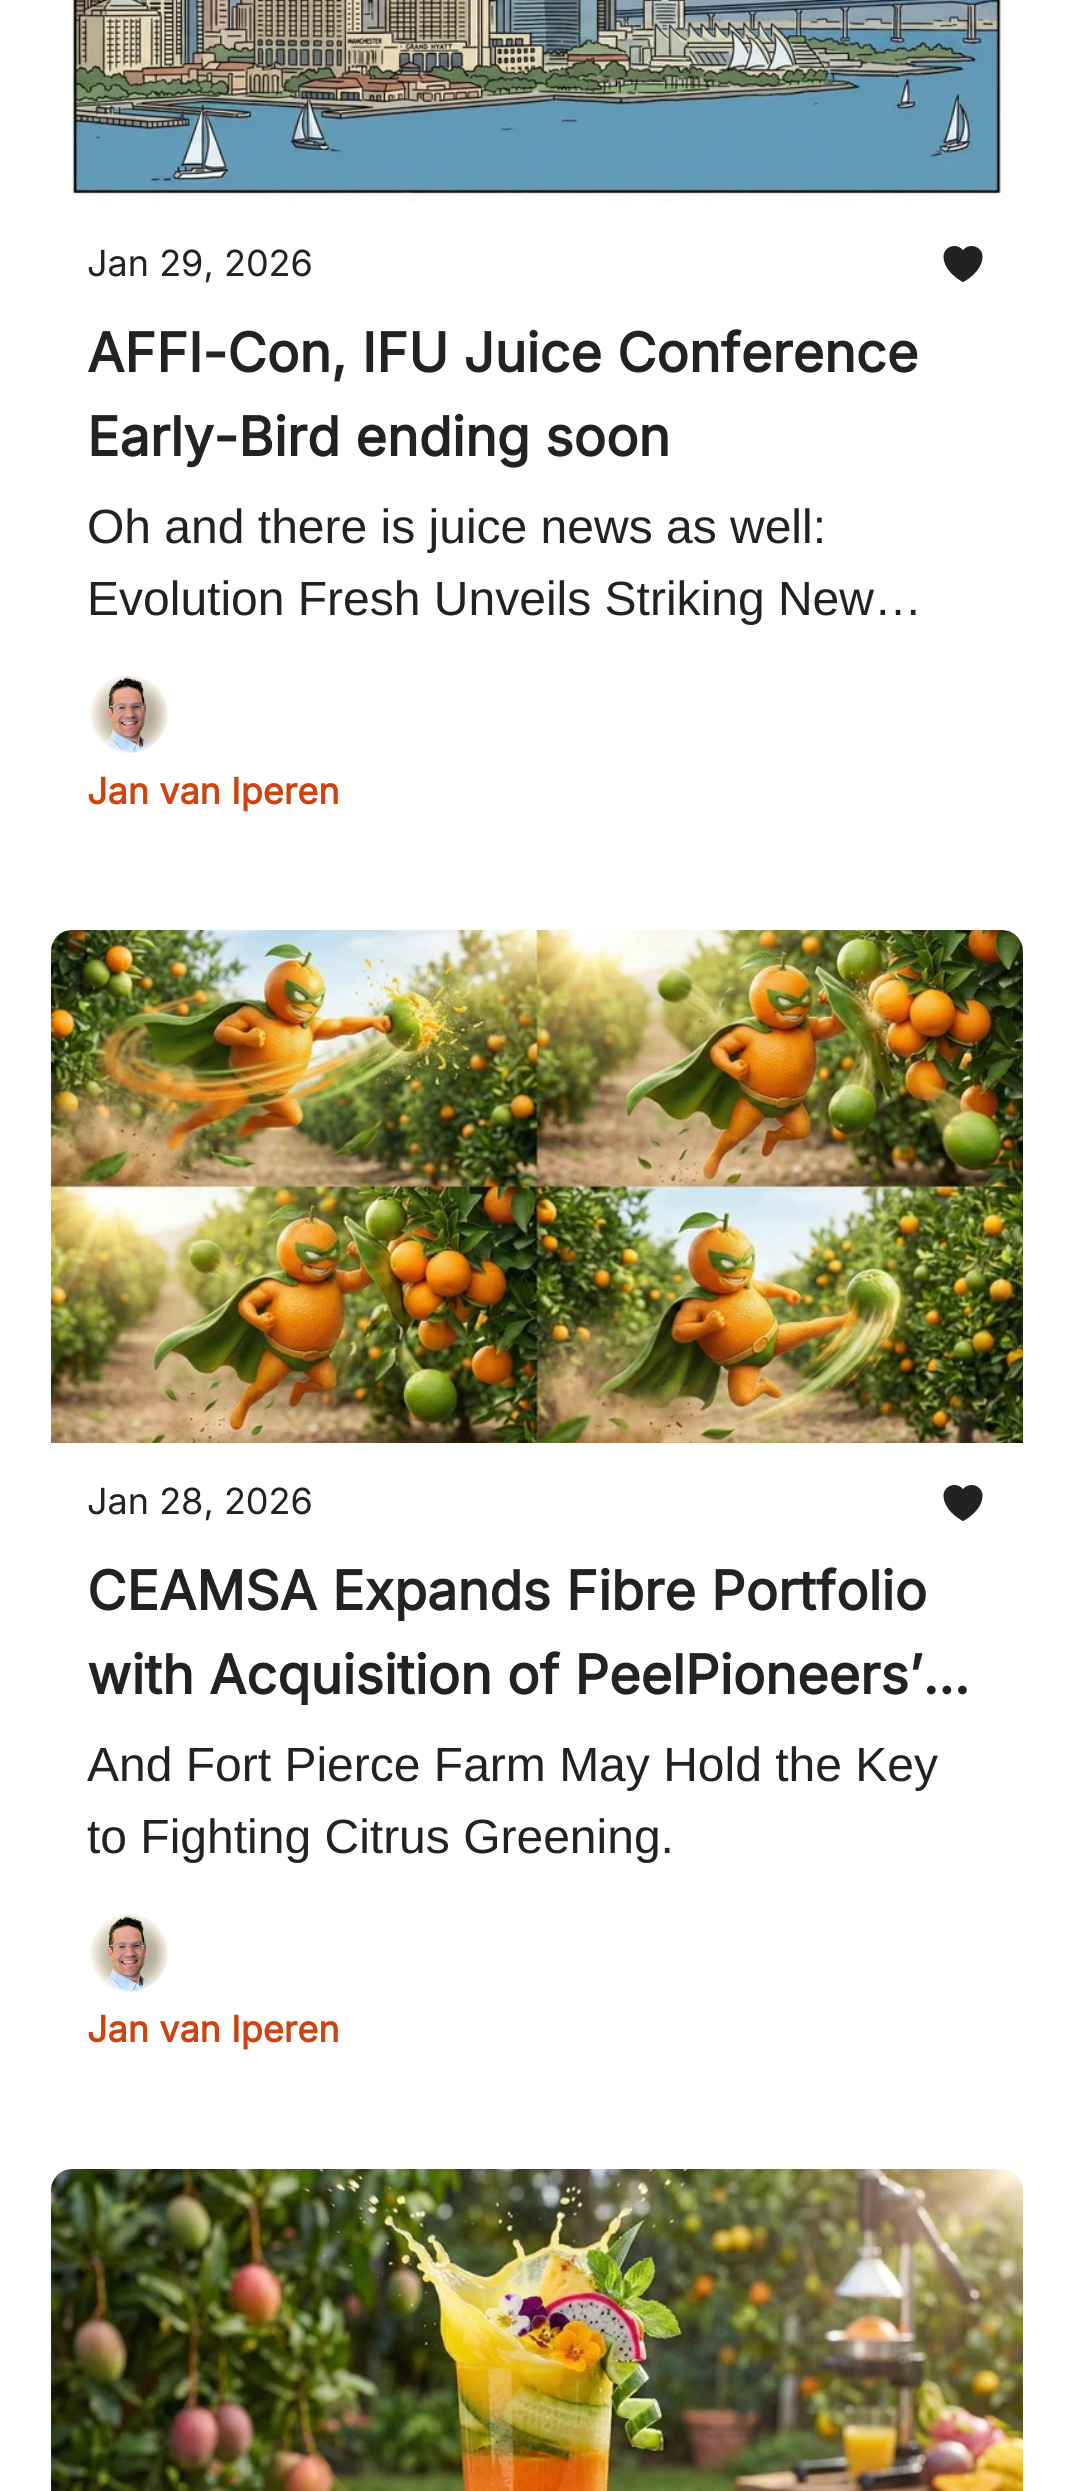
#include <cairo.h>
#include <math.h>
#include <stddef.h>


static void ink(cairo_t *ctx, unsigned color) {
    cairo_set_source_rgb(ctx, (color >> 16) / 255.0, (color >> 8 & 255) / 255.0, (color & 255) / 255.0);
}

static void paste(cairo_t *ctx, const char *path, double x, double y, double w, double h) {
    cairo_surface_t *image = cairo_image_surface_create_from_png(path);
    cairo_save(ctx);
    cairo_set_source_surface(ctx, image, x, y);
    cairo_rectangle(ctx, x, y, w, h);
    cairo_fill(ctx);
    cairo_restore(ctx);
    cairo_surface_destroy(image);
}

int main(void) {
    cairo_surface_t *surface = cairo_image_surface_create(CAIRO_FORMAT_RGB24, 1073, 2491);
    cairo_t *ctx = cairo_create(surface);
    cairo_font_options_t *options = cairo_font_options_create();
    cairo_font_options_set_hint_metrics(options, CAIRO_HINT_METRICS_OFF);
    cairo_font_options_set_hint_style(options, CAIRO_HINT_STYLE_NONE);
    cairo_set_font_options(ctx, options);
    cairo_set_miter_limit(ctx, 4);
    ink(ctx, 0xFFFFFF);
    cairo_paint(ctx);
    paste(ctx, "media/1.png", 70, 0, 935, 204);
    cairo_select_font_face(ctx, "Inter", CAIRO_FONT_SLANT_NORMAL, CAIRO_FONT_WEIGHT_NORMAL);
    cairo_set_font_size(ctx, 36);
    ink(ctx, 0x222222);
    cairo_move_to(ctx, 87, 276);
    cairo_show_text(ctx, "Jan 29, 2026");
    paste(ctx, "media/2.png", 943, 246, 40, 36);
    cairo_select_font_face(ctx, "Inter", CAIRO_FONT_SLANT_NORMAL, CAIRO_FONT_WEIGHT_BOLD);
    cairo_set_font_size(ctx, 54);
    cairo_move_to(ctx, 87, 372);
    cairo_show_text(ctx, "AFFI-Con, IFU Juice Conference");
    cairo_move_to(ctx, 87, 456);
    cairo_show_text(ctx, "Early-Bird ending soon");
    cairo_select_font_face(ctx, "Liberation Sans", CAIRO_FONT_SLANT_NORMAL, CAIRO_FONT_WEIGHT_NORMAL);
    cairo_set_font_size(ctx, 48);
    cairo_move_to(ctx, 87, 543);
    cairo_show_text(ctx, "Oh and there is juice news as well:");
    cairo_move_to(ctx, 87, 615);
    cairo_show_text(ctx, "Evolution Fresh Unveils Striking New…");
    paste(ctx, "media/3.png", 90, 675, 78, 78);
    cairo_select_font_face(ctx, "Inter", CAIRO_FONT_SLANT_NORMAL, CAIRO_FONT_WEIGHT_BOLD);
    cairo_set_font_size(ctx, 36);
    ink(ctx, 0xCC4411);
    cairo_move_to(ctx, 87, 804);
    cairo_show_text(ctx, "Jan van Iperen");
    paste(ctx, "media/4.png", 51, 930, 972, 513);
    cairo_select_font_face(ctx, "Inter", CAIRO_FONT_SLANT_NORMAL, CAIRO_FONT_WEIGHT_NORMAL);
    ink(ctx, 0x222222);
    cairo_move_to(ctx, 87, 1514);
    cairo_show_text(ctx, "Jan 28, 2026");
    paste(ctx, "media/2.png", 943, 1485, 40, 36);
    cairo_select_font_face(ctx, "Inter", CAIRO_FONT_SLANT_NORMAL, CAIRO_FONT_WEIGHT_BOLD);
    cairo_set_font_size(ctx, 54);
    cairo_move_to(ctx, 87, 1610);
    cairo_show_text(ctx, "CEAMSA Expands Fibre Portfolio");
    cairo_move_to(ctx, 87, 1694);
    cairo_show_text(ctx, "with Acquisition of PeelPioneers’…");
    cairo_select_font_face(ctx, "Liberation Sans", CAIRO_FONT_SLANT_NORMAL, CAIRO_FONT_WEIGHT_NORMAL);
    cairo_set_font_size(ctx, 48);
    cairo_move_to(ctx, 87, 1781);
    cairo_show_text(ctx, "And Fort Pierce Farm May Hold the Key");
    cairo_move_to(ctx, 87, 1853);
    cairo_show_text(ctx, "to Fighting Citrus Greening.");
    paste(ctx, "media/3.png", 90, 1914, 78, 78);
    cairo_select_font_face(ctx, "Inter", CAIRO_FONT_SLANT_NORMAL, CAIRO_FONT_WEIGHT_BOLD);
    cairo_set_font_size(ctx, 36);
    ink(ctx, 0xCC4411);
    cairo_move_to(ctx, 87, 2042);
    cairo_show_text(ctx, "Jan van Iperen");
    paste(ctx, "media/5.png", 51, 2169, 972, 322);
    cairo_surface_write_to_png(surface, "image.png");
    cairo_font_options_destroy(options);
    cairo_destroy(ctx);
    cairo_surface_destroy(surface);
    return 0;
}
